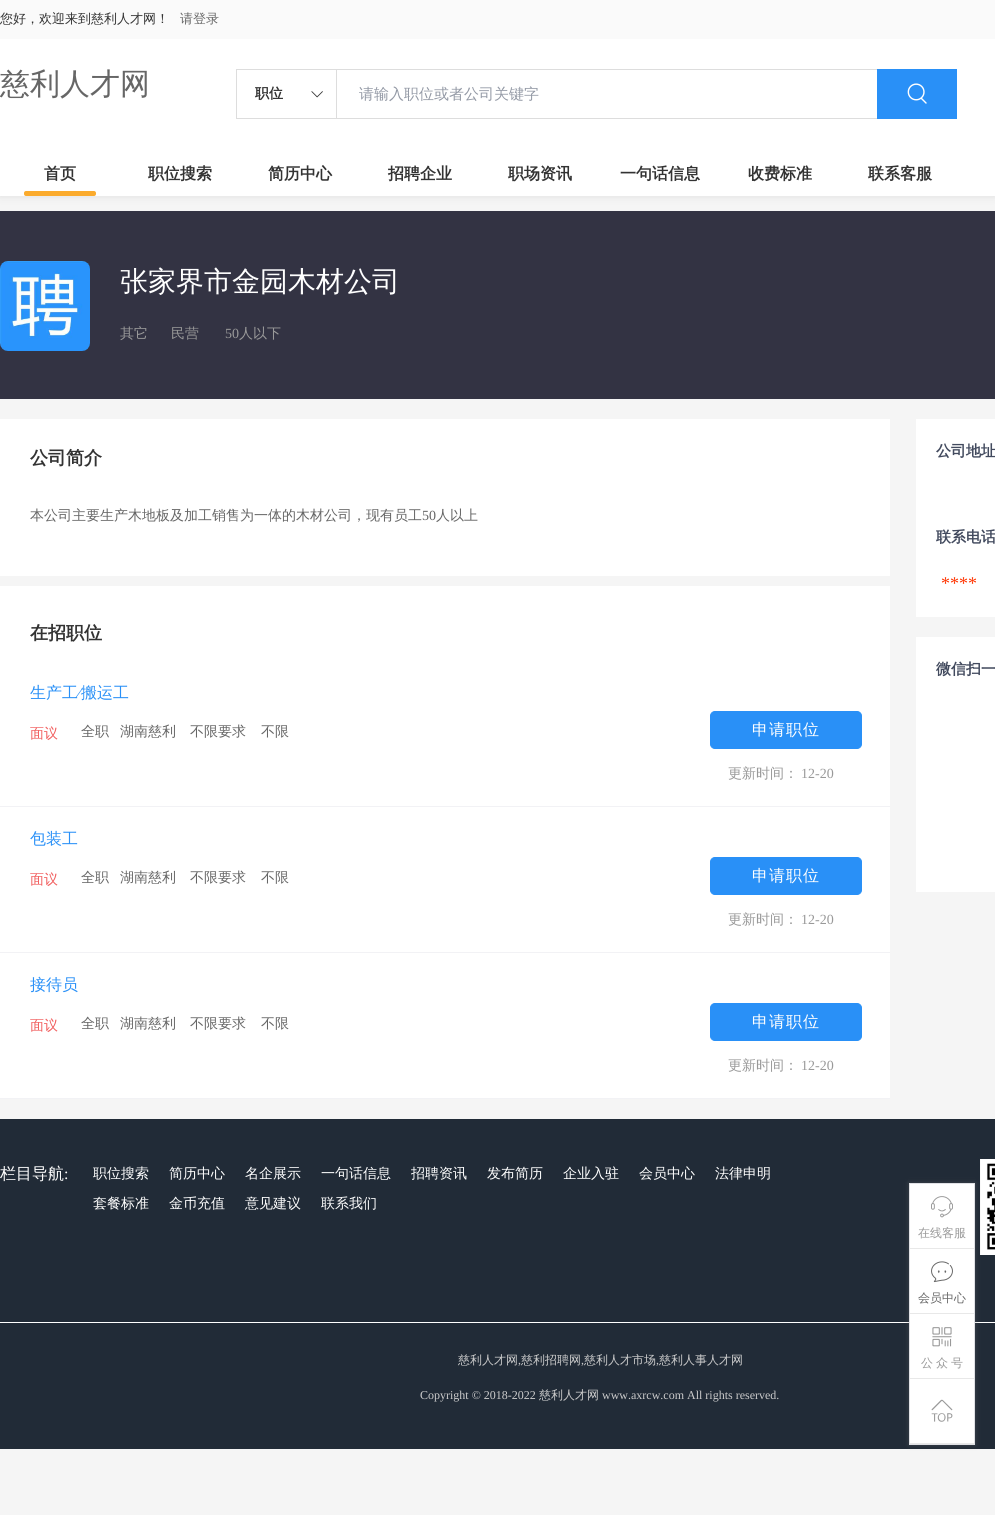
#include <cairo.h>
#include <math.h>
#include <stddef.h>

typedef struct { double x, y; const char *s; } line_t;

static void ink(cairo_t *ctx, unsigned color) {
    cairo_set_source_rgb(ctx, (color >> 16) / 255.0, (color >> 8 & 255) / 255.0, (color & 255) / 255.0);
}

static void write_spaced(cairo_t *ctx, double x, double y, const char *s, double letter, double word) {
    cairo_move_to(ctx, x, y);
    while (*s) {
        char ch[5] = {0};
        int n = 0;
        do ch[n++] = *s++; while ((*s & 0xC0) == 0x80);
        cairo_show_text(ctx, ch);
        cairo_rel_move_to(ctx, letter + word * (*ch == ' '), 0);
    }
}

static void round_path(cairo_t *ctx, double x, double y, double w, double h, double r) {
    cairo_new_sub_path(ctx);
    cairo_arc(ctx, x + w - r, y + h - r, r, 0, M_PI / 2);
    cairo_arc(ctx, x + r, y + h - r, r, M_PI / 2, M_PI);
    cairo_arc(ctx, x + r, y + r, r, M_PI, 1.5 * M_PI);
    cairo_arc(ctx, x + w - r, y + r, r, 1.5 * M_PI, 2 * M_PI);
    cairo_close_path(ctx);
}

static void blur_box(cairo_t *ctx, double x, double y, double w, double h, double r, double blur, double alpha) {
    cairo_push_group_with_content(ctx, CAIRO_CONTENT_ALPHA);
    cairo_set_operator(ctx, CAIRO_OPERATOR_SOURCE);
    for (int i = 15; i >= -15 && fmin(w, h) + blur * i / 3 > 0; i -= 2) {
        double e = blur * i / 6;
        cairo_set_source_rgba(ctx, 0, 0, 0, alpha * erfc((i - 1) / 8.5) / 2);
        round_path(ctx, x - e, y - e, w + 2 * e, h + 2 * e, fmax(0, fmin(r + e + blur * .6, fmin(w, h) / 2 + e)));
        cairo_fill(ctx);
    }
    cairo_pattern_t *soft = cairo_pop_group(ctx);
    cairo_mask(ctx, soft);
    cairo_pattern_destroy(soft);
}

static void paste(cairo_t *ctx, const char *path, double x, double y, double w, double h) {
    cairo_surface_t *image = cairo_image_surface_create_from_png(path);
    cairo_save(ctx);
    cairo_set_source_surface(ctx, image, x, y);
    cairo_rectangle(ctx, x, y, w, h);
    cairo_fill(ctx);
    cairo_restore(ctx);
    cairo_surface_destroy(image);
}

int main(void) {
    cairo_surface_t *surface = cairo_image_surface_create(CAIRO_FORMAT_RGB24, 995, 1515);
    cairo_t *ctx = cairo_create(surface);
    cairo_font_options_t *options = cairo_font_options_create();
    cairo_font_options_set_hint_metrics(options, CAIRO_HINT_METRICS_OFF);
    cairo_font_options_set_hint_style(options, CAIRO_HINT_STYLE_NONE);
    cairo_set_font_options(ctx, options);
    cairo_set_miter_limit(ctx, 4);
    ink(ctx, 0xF5F5F5);
    cairo_paint(ctx);
    ink(ctx, 0xDDDDDD);
    blur_box(ctx, 0, 0, 995, 196, 0, 4, 1);
    ink(ctx, 0xFFFFFF);
    cairo_rectangle(ctx, 0, 39, 995, 157);
    cairo_fill(ctx);
    ink(ctx, 0xFAFAFA);
    cairo_rectangle(ctx, 0, 0, 995, 39);
    cairo_fill(ctx);
    cairo_select_font_face(ctx, "WenQuanYi Zen Hei Medium", CAIRO_FONT_SLANT_NORMAL, CAIRO_FONT_WEIGHT_NORMAL);
    cairo_set_font_size(ctx, 13);
    ink(ctx, 0x333333);
    cairo_move_to(ctx, 0, 23);
    cairo_show_text(ctx, "您好，欢迎来到慈利人才网！");
    ink(ctx, 0x666666);
    cairo_move_to(ctx, 180, 23);
    cairo_show_text(ctx, "请登录");
    cairo_set_font_size(ctx, 30);
    cairo_move_to(ctx, 0, 94);
    cairo_show_text(ctx, "慈利人才网");
    cairo_rectangle(ctx, 236.5, 69.5, 100, 49);
    ink(ctx, 0xDDDDDD);
    cairo_set_line_width(ctx, 1);
    cairo_stroke(ctx);
    cairo_select_font_face(ctx, "WenQuanYi Zen Hei", CAIRO_FONT_SLANT_NORMAL, CAIRO_FONT_WEIGHT_BOLD);
    cairo_set_font_size(ctx, 14);
    ink(ctx, 0x333333);
    cairo_move_to(ctx, 255, 98);
    cairo_show_text(ctx, "职位");
    paste(ctx, "media/1.png", 311, 91, 12, 7);
    ink(ctx, 0xDDDDDD);
    cairo_rectangle(ctx, 337, 69, 540, 1);
    cairo_fill(ctx);
    cairo_rectangle(ctx, 337, 118, 540, 1);
    cairo_fill(ctx);
    cairo_select_font_face(ctx, "WenQuanYi Zen Hei Medium", CAIRO_FONT_SLANT_NORMAL, CAIRO_FONT_WEIGHT_NORMAL);
    cairo_set_font_size(ctx, 15);
    ink(ctx, 0x9399A5);
    cairo_move_to(ctx, 359, 99);
    cairo_show_text(ctx, "请输入职位或者公司关键字");
    ink(ctx, 0x2990F7);
    cairo_rectangle(ctx, 877, 69, 80, 50);
    cairo_fill(ctx);
    paste(ctx, "media/2.png", 907, 83, 20, 21);
    cairo_select_font_face(ctx, "WenQuanYi Zen Hei", CAIRO_FONT_SLANT_NORMAL, CAIRO_FONT_WEIGHT_BOLD);
    cairo_set_font_size(ctx, 16);
    ink(ctx, 0x333333);
    cairo_move_to(ctx, 44, 179);
    cairo_show_text(ctx, "首页");
    ink(ctx, 0xFBAB2D);
    round_path(ctx, 24, 191, 72, 5, 2);
    cairo_fill(ctx);
    ink(ctx, 0x333333);
    {
        static const line_t items[] = {
            {148, 179, "职位搜索"},
            {268, 179, "简历中心"},
            {388, 179, "招聘企业"},
            {508, 179, "职场资讯"},
            {620, 179, "一句话信息"},
            {748, 179, "收费标准"},
            {868, 179, "联系客服"},
        };
        for (size_t i = 0; i < sizeof items / sizeof *items; i++) {
            cairo_move_to(ctx, items[i].x, items[i].y);
            cairo_show_text(ctx, items[i].s);
        }
    }
    ink(ctx, 0x212B37);
    cairo_rectangle(ctx, 0, 1119, 995, 330);
    cairo_fill(ctx);
    ink(ctx, 0xFFFFFF);
    cairo_rectangle(ctx, 0, 1322, 995, 1);
    cairo_fill(ctx);
    paste(ctx, "media/8.png", 980, 1159, 15, 96);
    ink(ctx, 0x6E6E6E);
    blur_box(ctx, 909, 1183, 66, 262, 0, 2.5, 0.4);
    ink(ctx, 0xFFFFFF);
    cairo_rectangle(ctx, 910, 1184, 64, 259);
    cairo_fill(ctx);
    cairo_rectangle(ctx, 909.5, 1183.5, 65, 261);
    ink(ctx, 0xE0E1E5);
    cairo_stroke(ctx);
    ink(ctx, 0xE8E8E8);
    cairo_rectangle(ctx, 910, 1248, 64, 1);
    cairo_fill(ctx);
    paste(ctx, "media/3.png", 931, 1196, 22, 22);
    cairo_select_font_face(ctx, "WenQuanYi Zen Hei Medium", CAIRO_FONT_SLANT_NORMAL, CAIRO_FONT_WEIGHT_NORMAL);
    cairo_set_font_size(ctx, 12);
    ink(ctx, 0x999999);
    cairo_move_to(ctx, 918, 1237);
    cairo_show_text(ctx, "在线客服");
    ink(ctx, 0xE8E8E8);
    cairo_rectangle(ctx, 910, 1313, 64, 1);
    cairo_fill(ctx);
    paste(ctx, "media/4.png", 931, 1261, 22, 22);
    ink(ctx, 0x666666);
    cairo_move_to(ctx, 918, 1302);
    cairo_show_text(ctx, "会员中心");
    ink(ctx, 0xE8E8E8);
    cairo_rectangle(ctx, 910, 1378, 64, 1);
    cairo_fill(ctx);
    paste(ctx, "media/5.png", 932, 1327, 20, 20);
    ink(ctx, 0x999999);
    {
        static const line_t items[] = {
            {921, 1367, "公"},
            {936, 1367, "众"},
            {951, 1367, "号"},
        };
        for (size_t i = 0; i < sizeof items / sizeof *items; i++) {
            cairo_move_to(ctx, items[i].x, items[i].y);
            cairo_show_text(ctx, items[i].s);
        }
    }
    ink(ctx, 0xE8E8E8);
    cairo_rectangle(ctx, 910, 1443, 64, 1);
    cairo_fill(ctx);
    paste(ctx, "media/6.png", 931, 1399, 22, 23);
    ink(ctx, 0x333343);
    cairo_rectangle(ctx, 0, 211, 995, 188);
    cairo_fill(ctx);
    paste(ctx, "media/7.png", 0, 261, 90, 90);
    cairo_set_font_size(ctx, 28);
    ink(ctx, 0xFFFFFF);
    cairo_move_to(ctx, 120, 291);
    cairo_show_text(ctx, "张家界市金园木材公司");
    cairo_set_font_size(ctx, 14);
    ink(ctx, 0x999999);
    cairo_move_to(ctx, 120, 338);
    cairo_show_text(ctx, "其它");
    cairo_move_to(ctx, 171, 338);
    cairo_show_text(ctx, "民营");
    cairo_select_font_face(ctx, "Liberation Serif", CAIRO_FONT_SLANT_NORMAL, CAIRO_FONT_WEIGHT_NORMAL);
    cairo_move_to(ctx, 225, 338);
    cairo_show_text(ctx, "50");
    cairo_select_font_face(ctx, "WenQuanYi Zen Hei Medium", CAIRO_FONT_SLANT_NORMAL, CAIRO_FONT_WEIGHT_NORMAL);
    cairo_move_to(ctx, 239, 338);
    cairo_show_text(ctx, "人以下");
    ink(ctx, 0xFFFFFF);
    cairo_rectangle(ctx, 0, 419, 890, 157);
    cairo_fill(ctx);
    cairo_select_font_face(ctx, "WenQuanYi Zen Hei", CAIRO_FONT_SLANT_NORMAL, CAIRO_FONT_WEIGHT_BOLD);
    cairo_set_font_size(ctx, 18);
    ink(ctx, 0x333333);
    cairo_move_to(ctx, 30, 464);
    cairo_show_text(ctx, "公司简介");
    cairo_select_font_face(ctx, "WenQuanYi Zen Hei Medium", CAIRO_FONT_SLANT_NORMAL, CAIRO_FONT_WEIGHT_NORMAL);
    cairo_set_font_size(ctx, 14);
    ink(ctx, 0x666666);
    cairo_move_to(ctx, 30, 520);
    cairo_show_text(ctx, "本公司主要生产木地板及加工销售为一体的木材公司，现有员工");
    cairo_select_font_face(ctx, "Liberation Serif", CAIRO_FONT_SLANT_NORMAL, CAIRO_FONT_WEIGHT_NORMAL);
    cairo_move_to(ctx, 422, 520);
    cairo_show_text(ctx, "50");
    cairo_select_font_face(ctx, "WenQuanYi Zen Hei Medium", CAIRO_FONT_SLANT_NORMAL, CAIRO_FONT_WEIGHT_NORMAL);
    cairo_move_to(ctx, 436, 520);
    cairo_show_text(ctx, "人以上");
    ink(ctx, 0xFFFFFF);
    cairo_rectangle(ctx, 0, 586, 890, 512);
    cairo_fill(ctx);
    cairo_select_font_face(ctx, "WenQuanYi Zen Hei", CAIRO_FONT_SLANT_NORMAL, CAIRO_FONT_WEIGHT_BOLD);
    cairo_set_font_size(ctx, 18);
    ink(ctx, 0x333333);
    cairo_move_to(ctx, 30, 639);
    cairo_show_text(ctx, "在招职位");
    ink(ctx, 0xF2F2F5);
    cairo_rectangle(ctx, 0, 806, 890, 1);
    cairo_fill(ctx);
    cairo_select_font_face(ctx, "WenQuanYi Zen Hei Medium", CAIRO_FONT_SLANT_NORMAL, CAIRO_FONT_WEIGHT_NORMAL);
    cairo_set_font_size(ctx, 16);
    ink(ctx, 0x2990F7);
    cairo_move_to(ctx, 30, 698);
    cairo_show_text(ctx, "生产工");
    cairo_select_font_face(ctx, "Liberation Serif", CAIRO_FONT_SLANT_NORMAL, CAIRO_FONT_WEIGHT_NORMAL);
    cairo_move_to(ctx, 78, 698);
    cairo_show_text(ctx, "∕");
    cairo_select_font_face(ctx, "WenQuanYi Zen Hei Medium", CAIRO_FONT_SLANT_NORMAL, CAIRO_FONT_WEIGHT_NORMAL);
    cairo_move_to(ctx, 81, 698);
    cairo_show_text(ctx, "搬运工");
    cairo_set_font_size(ctx, 14);
    ink(ctx, 0xF15D5D);
    cairo_move_to(ctx, 30, 738);
    cairo_show_text(ctx, "面议");
    ink(ctx, 0x666666);
    {
        static const line_t items[] = {
            {81, 736, "全职"},
            {120, 736, "湖南慈利"},
            {190, 736, "不限要求"},
            {261, 736, "不限"},
        };
        for (size_t i = 0; i < sizeof items / sizeof *items; i++) {
            cairo_move_to(ctx, items[i].x, items[i].y);
            cairo_show_text(ctx, items[i].s);
        }
    }
    ink(ctx, 0x2990F7);
    round_path(ctx, 710.5, 711.5, 151, 37, 4.5);
    cairo_fill_preserve(ctx);
    cairo_stroke(ctx);
    cairo_set_font_size(ctx, 16);
    ink(ctx, 0xFFFFFF);
    write_spaced(ctx, 752, 735, "申请职位", 1, 0);
    cairo_set_font_size(ctx, 14);
    ink(ctx, 0x999999);
    cairo_move_to(ctx, 728, 778);
    cairo_show_text(ctx, "更新时间：");
    cairo_select_font_face(ctx, "Liberation Serif", CAIRO_FONT_SLANT_NORMAL, CAIRO_FONT_WEIGHT_NORMAL);
    cairo_move_to(ctx, 801, 778);
    cairo_show_text(ctx, "12-20");
    ink(ctx, 0xF2F2F5);
    cairo_rectangle(ctx, 0, 952, 890, 1);
    cairo_fill(ctx);
    cairo_select_font_face(ctx, "WenQuanYi Zen Hei Medium", CAIRO_FONT_SLANT_NORMAL, CAIRO_FONT_WEIGHT_NORMAL);
    cairo_set_font_size(ctx, 16);
    ink(ctx, 0x2990F7);
    cairo_move_to(ctx, 30, 844);
    cairo_show_text(ctx, "包装工");
    cairo_set_font_size(ctx, 14);
    ink(ctx, 0xF15D5D);
    cairo_move_to(ctx, 30, 884);
    cairo_show_text(ctx, "面议");
    ink(ctx, 0x666666);
    {
        static const line_t items[] = {
            {81, 882, "全职"},
            {120, 882, "湖南慈利"},
            {190, 882, "不限要求"},
            {261, 882, "不限"},
        };
        for (size_t i = 0; i < sizeof items / sizeof *items; i++) {
            cairo_move_to(ctx, items[i].x, items[i].y);
            cairo_show_text(ctx, items[i].s);
        }
    }
    ink(ctx, 0x2990F7);
    round_path(ctx, 710.5, 857.5, 151, 37, 4.5);
    cairo_fill_preserve(ctx);
    cairo_stroke(ctx);
    cairo_set_font_size(ctx, 16);
    ink(ctx, 0xFFFFFF);
    write_spaced(ctx, 752, 881, "申请职位", 1, 0);
    cairo_set_font_size(ctx, 14);
    ink(ctx, 0x999999);
    cairo_move_to(ctx, 728, 924);
    cairo_show_text(ctx, "更新时间：");
    cairo_select_font_face(ctx, "Liberation Serif", CAIRO_FONT_SLANT_NORMAL, CAIRO_FONT_WEIGHT_NORMAL);
    cairo_move_to(ctx, 801, 924);
    cairo_show_text(ctx, "12-20");
    ink(ctx, 0xF2F2F5);
    cairo_rectangle(ctx, 0, 1098, 890, 1);
    cairo_fill(ctx);
    cairo_select_font_face(ctx, "WenQuanYi Zen Hei Medium", CAIRO_FONT_SLANT_NORMAL, CAIRO_FONT_WEIGHT_NORMAL);
    cairo_set_font_size(ctx, 16);
    ink(ctx, 0x2990F7);
    cairo_move_to(ctx, 30, 990);
    cairo_show_text(ctx, "接待员");
    cairo_set_font_size(ctx, 14);
    ink(ctx, 0xF15D5D);
    cairo_move_to(ctx, 30, 1030);
    cairo_show_text(ctx, "面议");
    ink(ctx, 0x666666);
    {
        static const line_t items[] = {
            {81, 1028, "全职"},
            {120, 1028, "湖南慈利"},
            {190, 1028, "不限要求"},
            {261, 1028, "不限"},
        };
        for (size_t i = 0; i < sizeof items / sizeof *items; i++) {
            cairo_move_to(ctx, items[i].x, items[i].y);
            cairo_show_text(ctx, items[i].s);
        }
    }
    ink(ctx, 0x2990F7);
    round_path(ctx, 710.5, 1003.5, 151, 37, 4.5);
    cairo_fill_preserve(ctx);
    cairo_stroke(ctx);
    cairo_set_font_size(ctx, 16);
    ink(ctx, 0xFFFFFF);
    write_spaced(ctx, 752, 1027, "申请职位", 1, 0);
    cairo_set_font_size(ctx, 14);
    ink(ctx, 0x999999);
    cairo_move_to(ctx, 728, 1070);
    cairo_show_text(ctx, "更新时间：");
    cairo_select_font_face(ctx, "Liberation Serif", CAIRO_FONT_SLANT_NORMAL, CAIRO_FONT_WEIGHT_NORMAL);
    cairo_move_to(ctx, 801, 1070);
    cairo_show_text(ctx, "12-20");
    ink(ctx, 0xFFFFFF);
    cairo_rectangle(ctx, 916, 419, 79, 198);
    cairo_fill(ctx);
    cairo_select_font_face(ctx, "WenQuanYi Zen Hei", CAIRO_FONT_SLANT_NORMAL, CAIRO_FONT_WEIGHT_BOLD);
    cairo_set_font_size(ctx, 15);
    ink(ctx, 0x424A5E);
    cairo_move_to(ctx, 936, 456);
    cairo_show_text(ctx, "公司地址");
    cairo_move_to(ctx, 936, 542);
    cairo_show_text(ctx, "联系电话");
    cairo_select_font_face(ctx, "Liberation Serif", CAIRO_FONT_SLANT_NORMAL, CAIRO_FONT_WEIGHT_NORMAL);
    cairo_set_font_size(ctx, 18);
    ink(ctx, 0xFF3300);
    cairo_move_to(ctx, 941, 589);
    cairo_show_text(ctx, "****");
    ink(ctx, 0xFFFFFF);
    cairo_rectangle(ctx, 916, 637, 79, 255);
    cairo_fill(ctx);
    cairo_select_font_face(ctx, "WenQuanYi Zen Hei", CAIRO_FONT_SLANT_NORMAL, CAIRO_FONT_WEIGHT_BOLD);
    cairo_set_font_size(ctx, 15);
    ink(ctx, 0x424A5E);
    cairo_move_to(ctx, 936, 674);
    cairo_show_text(ctx, "微信扫一");
    cairo_select_font_face(ctx, "WenQuanYi Zen Hei Medium", CAIRO_FONT_SLANT_NORMAL, CAIRO_FONT_WEIGHT_NORMAL);
    cairo_set_font_size(ctx, 16);
    ink(ctx, 0xFFFFFF);
    cairo_move_to(ctx, 0, 1179);
    cairo_show_text(ctx, "栏目导航");
    cairo_select_font_face(ctx, "Liberation Serif", CAIRO_FONT_SLANT_NORMAL, CAIRO_FONT_WEIGHT_NORMAL);
    cairo_move_to(ctx, 64, 1179);
    cairo_show_text(ctx, ":");
    cairo_select_font_face(ctx, "WenQuanYi Zen Hei Medium", CAIRO_FONT_SLANT_NORMAL, CAIRO_FONT_WEIGHT_NORMAL);
    cairo_set_font_size(ctx, 14);
    {
        static const line_t items[] = {
            {93, 1178, "职位搜索"},
            {169, 1178, "简历中心"},
            {245, 1178, "名企展示"},
            {321, 1178, "一句话信息"},
            {411, 1178, "招聘资讯"},
            {487, 1178, "发布简历"},
            {563, 1178, "企业入驻"},
            {639, 1178, "会员中心"},
            {715, 1178, "法律申明"},
            {93, 1208, "套餐标准"},
            {169, 1208, "金币充值"},
            {245, 1208, "意见建议"},
            {321, 1208, "联系我们"},
        };
        for (size_t i = 0; i < sizeof items / sizeof *items; i++) {
            cairo_move_to(ctx, items[i].x, items[i].y);
            cairo_show_text(ctx, items[i].s);
        }
    }
    cairo_set_font_size(ctx, 12);
    ink(ctx, 0xCCCCCC);
    cairo_move_to(ctx, 458, 1364);
    cairo_show_text(ctx, "慈利人才网");
    cairo_select_font_face(ctx, "Liberation Serif", CAIRO_FONT_SLANT_NORMAL, CAIRO_FONT_WEIGHT_NORMAL);
    cairo_move_to(ctx, 518, 1364);
    cairo_show_text(ctx, ",");
    cairo_select_font_face(ctx, "WenQuanYi Zen Hei Medium", CAIRO_FONT_SLANT_NORMAL, CAIRO_FONT_WEIGHT_NORMAL);
    cairo_move_to(ctx, 521, 1364);
    cairo_show_text(ctx, "慈利招聘网");
    cairo_select_font_face(ctx, "Liberation Serif", CAIRO_FONT_SLANT_NORMAL, CAIRO_FONT_WEIGHT_NORMAL);
    cairo_move_to(ctx, 581, 1364);
    cairo_show_text(ctx, ",");
    cairo_select_font_face(ctx, "WenQuanYi Zen Hei Medium", CAIRO_FONT_SLANT_NORMAL, CAIRO_FONT_WEIGHT_NORMAL);
    cairo_move_to(ctx, 584, 1364);
    cairo_show_text(ctx, "慈利人才市场");
    cairo_select_font_face(ctx, "Liberation Serif", CAIRO_FONT_SLANT_NORMAL, CAIRO_FONT_WEIGHT_NORMAL);
    cairo_move_to(ctx, 656, 1364);
    cairo_show_text(ctx, ",");
    cairo_select_font_face(ctx, "WenQuanYi Zen Hei Medium", CAIRO_FONT_SLANT_NORMAL, CAIRO_FONT_WEIGHT_NORMAL);
    cairo_move_to(ctx, 659, 1364);
    cairo_show_text(ctx, "慈利人事人才网");
    cairo_select_font_face(ctx, "Liberation Serif", CAIRO_FONT_SLANT_NORMAL, CAIRO_FONT_WEIGHT_NORMAL);
    cairo_move_to(ctx, 420, 1399);
    cairo_show_text(ctx, "Copyright © 2018-2022");
    cairo_select_font_face(ctx, "WenQuanYi Zen Hei Medium", CAIRO_FONT_SLANT_NORMAL, CAIRO_FONT_WEIGHT_NORMAL);
    cairo_move_to(ctx, 539, 1399);
    cairo_show_text(ctx, "慈利人才网");
    cairo_select_font_face(ctx, "Liberation Serif", CAIRO_FONT_SLANT_NORMAL, CAIRO_FONT_WEIGHT_NORMAL);
    cairo_move_to(ctx, 602, 1399);
    cairo_show_text(ctx, "www.axrcw.com All rights reserved.");
    cairo_surface_write_to_png(surface, "image.png");
    cairo_font_options_destroy(options);
    cairo_destroy(ctx);
    cairo_surface_destroy(surface);
    return 0;
}
